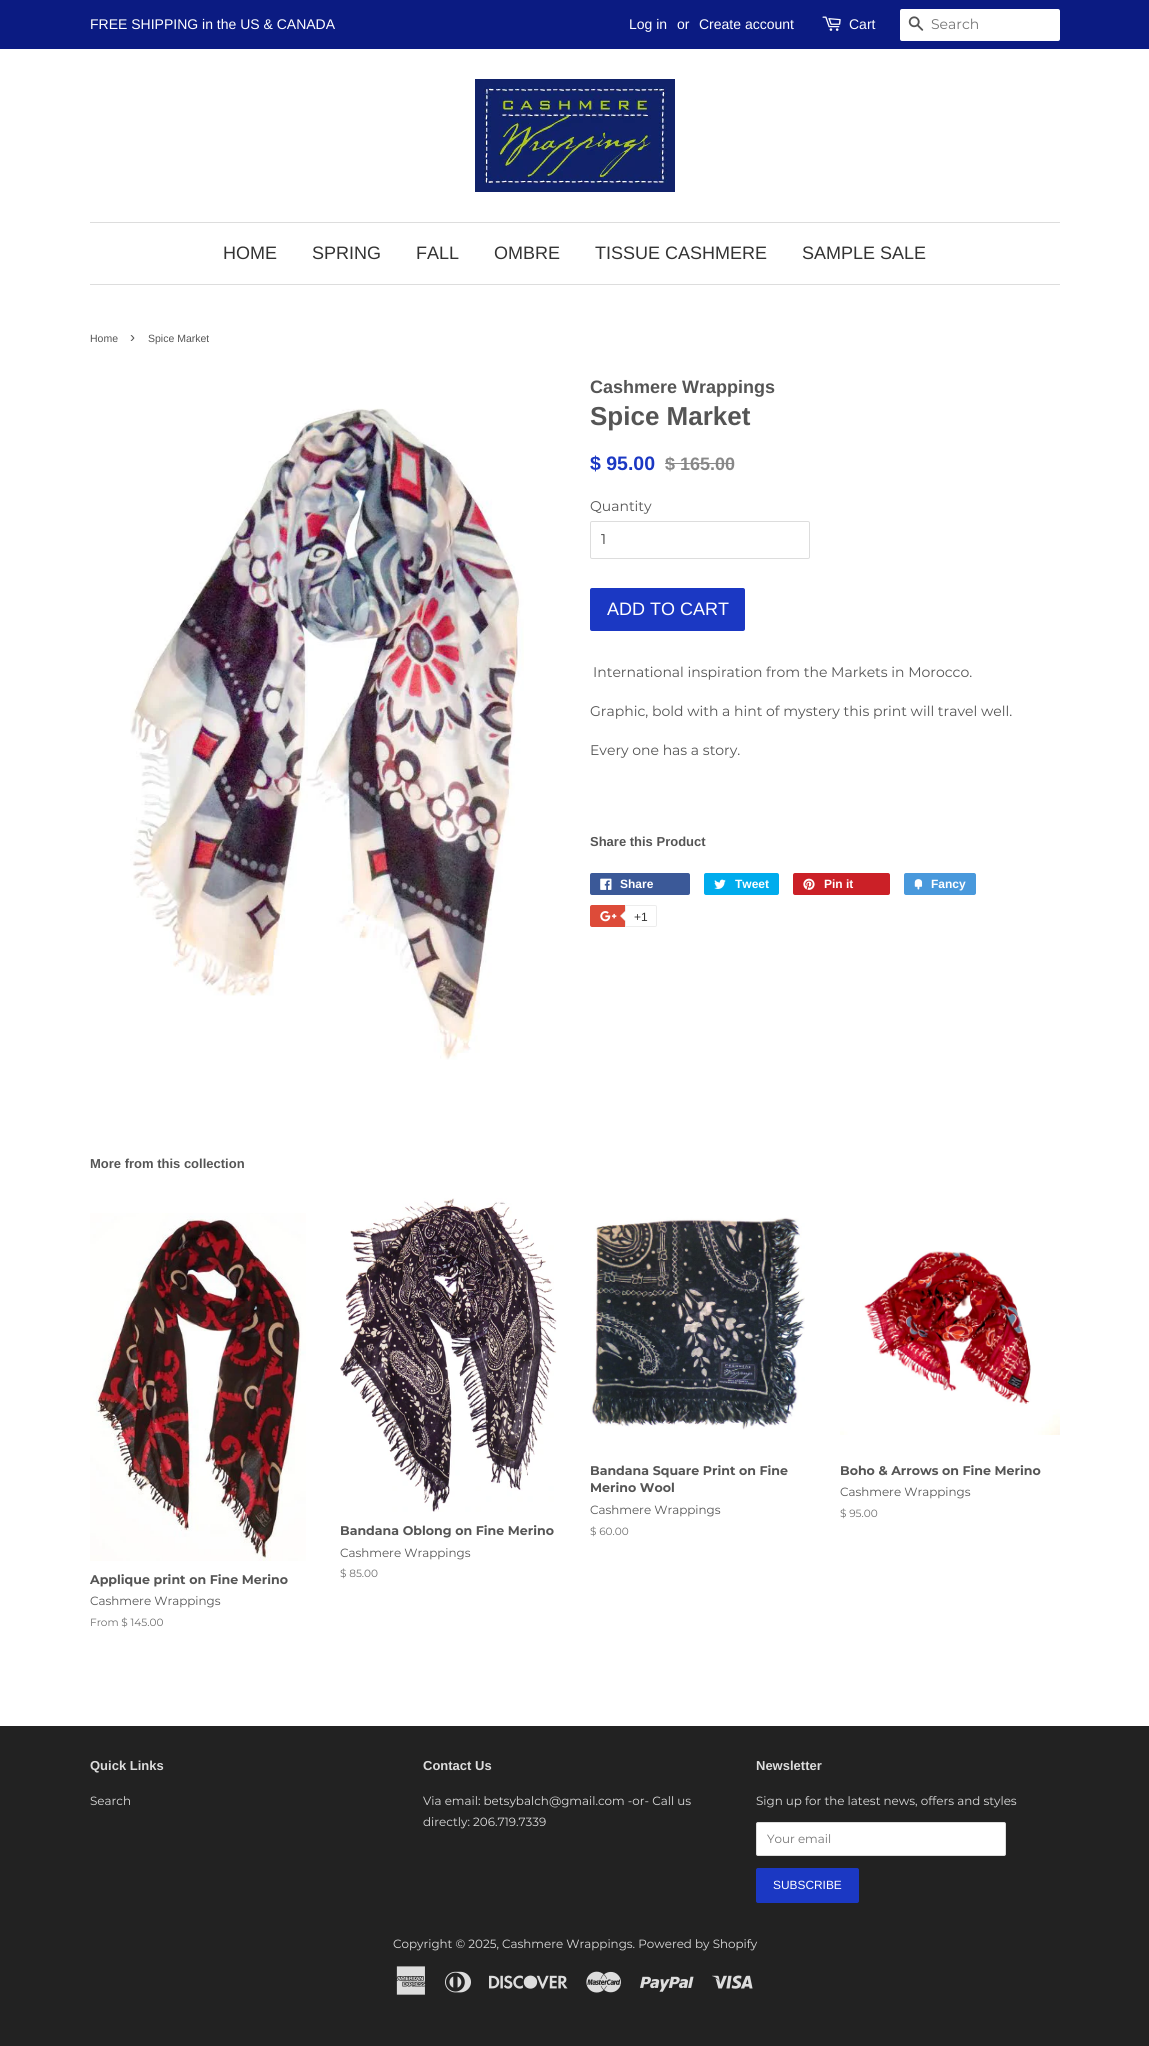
#include <cairo.h>
#include <math.h>
#include <stddef.h>

typedef struct { double x, y; const char *s; } line_t;

static void ink(cairo_t *ctx, unsigned color) {
    cairo_set_source_rgb(ctx, (color >> 16) / 255.0, (color >> 8 & 255) / 255.0, (color & 255) / 255.0);
}

static void round_path(cairo_t *ctx, double x, double y, double w, double h, double r) {
    cairo_new_sub_path(ctx);
    cairo_arc(ctx, x + w - r, y + h - r, r, 0, M_PI / 2);
    cairo_arc(ctx, x + r, y + h - r, r, M_PI / 2, M_PI);
    cairo_arc(ctx, x + r, y + r, r, M_PI, 1.5 * M_PI);
    cairo_arc(ctx, x + w - r, y + r, r, 1.5 * M_PI, 2 * M_PI);
    cairo_close_path(ctx);
}

static void paste(cairo_t *ctx, const char *path, double x, double y, double w, double h) {
    cairo_surface_t *image = cairo_image_surface_create_from_png(path);
    cairo_save(ctx);
    cairo_set_source_surface(ctx, image, x, y);
    cairo_rectangle(ctx, x, y, w, h);
    cairo_fill(ctx);
    cairo_restore(ctx);
    cairo_surface_destroy(image);
}

int main(void) {
    cairo_surface_t *surface = cairo_image_surface_create(CAIRO_FORMAT_RGB24, 1149, 2046);
    cairo_t *ctx = cairo_create(surface);
    cairo_font_options_t *options = cairo_font_options_create();
    cairo_font_options_set_hint_metrics(options, CAIRO_HINT_METRICS_OFF);
    cairo_font_options_set_hint_style(options, CAIRO_HINT_STYLE_NONE);
    cairo_set_font_options(ctx, options);
    cairo_set_miter_limit(ctx, 4);
    ink(ctx, 0x222222);
    cairo_paint(ctx);
    ink(ctx, 0xFFFFFF);
    cairo_rectangle(ctx, 0, 49, 1149, 1677);
    cairo_fill(ctx);
    ink(ctx, 0x0B1B82);
    cairo_rectangle(ctx, 0, 0, 1149, 49);
    cairo_fill(ctx);
    cairo_select_font_face(ctx, "Liberation Sans", CAIRO_FONT_SLANT_NORMAL, CAIRO_FONT_WEIGHT_NORMAL);
    cairo_set_font_size(ctx, 14);
    ink(ctx, 0xFFFFFF);
    {
        static const line_t items[] = {
            {90, 29, "FREE SHIPPING in the US & CANADA"},
            {629, 29, "Log in"},
            {677, 29, "or"},
            {699, 29, "Create account"},
        };
        for (size_t i = 0; i < sizeof items / sizeof *items; i++) {
            cairo_move_to(ctx, items[i].x, items[i].y);
            cairo_show_text(ctx, items[i].s);
        }
    }
    paste(ctx, "media/1.png", 822, 16, 19, 15);
    cairo_move_to(ctx, 849, 29);
    cairo_show_text(ctx, "Cart");
    round_path(ctx, 900, 9, 160, 32, 2);
    cairo_fill(ctx);
    paste(ctx, "media/2.png", 908, 16, 16, 15);
    cairo_select_font_face(ctx, "Montserrat", CAIRO_FONT_SLANT_NORMAL, CAIRO_FONT_WEIGHT_NORMAL);
    ink(ctx, 0x757575);
    cairo_move_to(ctx, 931, 29);
    cairo_show_text(ctx, "Search");
    paste(ctx, "media/3.png", 475, 79, 200, 113);
    ink(ctx, 0xDDDDDD);
    cairo_rectangle(ctx, 90, 222, 970, 1);
    cairo_fill(ctx);
    cairo_rectangle(ctx, 90, 284, 970, 1);
    cairo_fill(ctx);
    cairo_select_font_face(ctx, "Liberation Sans", CAIRO_FONT_SLANT_NORMAL, CAIRO_FONT_WEIGHT_NORMAL);
    cairo_set_font_size(ctx, 18);
    ink(ctx, 0x333333);
    {
        static const line_t items[] = {
            {223, 259, "HOME"},
            {312, 259, "SPRING"},
            {416, 259, "FALL"},
            {494, 259, "OMBRE"},
            {595, 259, "TISSUE CASHMERE"},
            {802, 259, "SAMPLE SALE"},
        };
        for (size_t i = 0; i < sizeof items / sizeof *items; i++) {
            cairo_move_to(ctx, items[i].x, items[i].y);
            cairo_show_text(ctx, items[i].s);
        }
    }
    cairo_set_font_size(ctx, 10.5);
    ink(ctx, 0x555555);
    cairo_move_to(ctx, 90, 342);
    cairo_show_text(ctx, "Home");
    cairo_set_font_size(ctx, 15);
    cairo_move_to(ctx, 130, 342);
    cairo_show_text(ctx, "›");
    cairo_set_font_size(ctx, 10.5);
    cairo_move_to(ctx, 148, 342);
    cairo_show_text(ctx, "Spice Market");
    paste(ctx, "media/4.png", 130, 408, 394, 652);
    cairo_select_font_face(ctx, "Liberation Sans", CAIRO_FONT_SLANT_NORMAL, CAIRO_FONT_WEIGHT_BOLD);
    cairo_set_font_size(ctx, 18);
    cairo_move_to(ctx, 590, 393);
    cairo_show_text(ctx, "Cashmere Wrappings");
    cairo_set_font_size(ctx, 26);
    cairo_move_to(ctx, 590, 425);
    cairo_show_text(ctx, "Spice Market");
    cairo_set_font_size(ctx, 19.5);
    ink(ctx, 0x1B38C3);
    cairo_move_to(ctx, 590, 470);
    cairo_show_text(ctx, "$ 95.00");
    cairo_set_font_size(ctx, 18);
    ink(ctx, 0x888888);
    cairo_move_to(ctx, 665, 470);
    cairo_show_text(ctx, "$ 165.00");
    cairo_rectangle(ctx, 665, 463, 69, 1);
    cairo_fill(ctx);
    cairo_select_font_face(ctx, "Montserrat", CAIRO_FONT_SLANT_NORMAL, CAIRO_FONT_WEIGHT_NORMAL);
    cairo_set_font_size(ctx, 14);
    ink(ctx, 0x555555);
    cairo_move_to(ctx, 590, 511);
    cairo_show_text(ctx, "Quantity");
    round_path(ctx, 590.5, 521.5, 219, 37, 1.5);
    ink(ctx, 0xDDDDDD);
    cairo_set_line_width(ctx, 1);
    cairo_stroke(ctx);
    ink(ctx, 0x333333);
    cairo_move_to(ctx, 601, 544);
    cairo_show_text(ctx, "1");
    ink(ctx, 0x1B38C3);
    round_path(ctx, 590, 588, 155, 43, 2);
    cairo_fill(ctx);
    cairo_select_font_face(ctx, "Liberation Sans", CAIRO_FONT_SLANT_NORMAL, CAIRO_FONT_WEIGHT_NORMAL);
    cairo_set_font_size(ctx, 18);
    ink(ctx, 0xFFFFFF);
    cairo_move_to(ctx, 607, 615);
    cairo_show_text(ctx, "ADD TO CART");
    cairo_select_font_face(ctx, "Montserrat", CAIRO_FONT_SLANT_NORMAL, CAIRO_FONT_WEIGHT_NORMAL);
    cairo_set_font_size(ctx, 14);
    ink(ctx, 0x555555);
    {
        static const line_t items[] = {
            {593, 677, "International inspiration from the Markets in Morocco."},
            {590, 716, "Graphic, bold with a hint of mystery this print will travel well."},
            {590, 755, "Every one has a story."},
        };
        for (size_t i = 0; i < sizeof items / sizeof *items; i++) {
            cairo_move_to(ctx, items[i].x, items[i].y);
            cairo_show_text(ctx, items[i].s);
        }
    }
    cairo_select_font_face(ctx, "Liberation Sans", CAIRO_FONT_SLANT_NORMAL, CAIRO_FONT_WEIGHT_BOLD);
    cairo_set_font_size(ctx, 13);
    cairo_move_to(ctx, 590, 846);
    cairo_show_text(ctx, "Share this Product");
    ink(ctx, 0x3B5998);
    round_path(ctx, 590, 873, 100, 22, 2);
    cairo_fill(ctx);
    paste(ctx, "media/5.png", 600, 878, 12, 12);
    cairo_set_font_size(ctx, 12);
    ink(ctx, 0xFFFFFF);
    cairo_move_to(ctx, 620, 888);
    cairo_show_text(ctx, "Share");
    ink(ctx, 0x00ACED);
    round_path(ctx, 704, 873, 75, 22, 2);
    cairo_fill(ctx);
    paste(ctx, "media/6.png", 714, 879, 12, 10);
    ink(ctx, 0xFFFFFF);
    cairo_move_to(ctx, 735, 888);
    cairo_show_text(ctx, "Tweet");
    ink(ctx, 0xCB2027);
    round_path(ctx, 793, 873, 97, 22, 2);
    cairo_fill(ctx);
    paste(ctx, "media/7.png", 803, 878, 12, 12);
    ink(ctx, 0xFFFFFF);
    cairo_move_to(ctx, 824, 888);
    cairo_show_text(ctx, "Pin it");
    ink(ctx, 0x4999DC);
    round_path(ctx, 904, 873, 72, 22, 2);
    cairo_fill(ctx);
    paste(ctx, "media/8.png", 914, 879, 9, 11);
    ink(ctx, 0xFFFFFF);
    cairo_move_to(ctx, 931, 888);
    cairo_show_text(ctx, "Fancy");
    ink(ctx, 0xDD4B39);
    round_path(ctx, 590, 905, 65, 22, 2);
    cairo_fill(ctx);
    paste(ctx, "media/9.png", 600, 911, 17, 11);
    ink(ctx, 0xFFFFFF);
    cairo_new_path(ctx);
    cairo_move_to(ctx, 625.5, 905.5);
    cairo_line_to(ctx, 655, 905.5);
    cairo_curve_to(ctx, 656, 905.5, 656.5, 906, 656.5, 907);
    cairo_line_to(ctx, 656.5, 925);
    cairo_curve_to(ctx, 656.5, 926, 656, 926.5, 655, 926.5);
    cairo_line_to(ctx, 625.5, 926.5);
    cairo_close_path(ctx);
    cairo_fill_preserve(ctx);
    ink(ctx, 0xECECEC);
    cairo_stroke(ctx);
    cairo_new_path(ctx);
    cairo_move_to(ctx, 626, 910);
    cairo_line_to(ctx, 626, 922);
    cairo_line_to(ctx, 620, 916);
    cairo_close_path(ctx);
    cairo_fill(ctx);
    ink(ctx, 0xFFFFFF);
    cairo_new_path(ctx);
    cairo_move_to(ctx, 627, 910);
    cairo_line_to(ctx, 627, 922);
    cairo_line_to(ctx, 621, 916);
    cairo_close_path(ctx);
    cairo_fill(ctx);
    cairo_select_font_face(ctx, "Liberation Sans", CAIRO_FONT_SLANT_NORMAL, CAIRO_FONT_WEIGHT_NORMAL);
    ink(ctx, 0x333333);
    cairo_move_to(ctx, 634, 921);
    cairo_show_text(ctx, "+1");
    cairo_select_font_face(ctx, "Liberation Sans", CAIRO_FONT_SLANT_NORMAL, CAIRO_FONT_WEIGHT_BOLD);
    cairo_set_font_size(ctx, 13);
    ink(ctx, 0x555555);
    cairo_move_to(ctx, 90, 1168);
    cairo_show_text(ctx, "More from this collection");
    paste(ctx, "media/10.png", 590, 1217, 215, 213);
    cairo_select_font_face(ctx, "Montserrat", CAIRO_FONT_SLANT_NORMAL, CAIRO_FONT_WEIGHT_BOLD);
    cairo_set_font_size(ctx, 12.6);
    cairo_move_to(ctx, 590, 1475);
    cairo_show_text(ctx, "Bandana Square Print on Fine");
    cairo_move_to(ctx, 590, 1492);
    cairo_show_text(ctx, "Merino Wool");
    cairo_select_font_face(ctx, "Montserrat", CAIRO_FONT_SLANT_NORMAL, CAIRO_FONT_WEIGHT_NORMAL);
    cairo_set_font_size(ctx, 11.9);
    cairo_move_to(ctx, 590, 1514);
    cairo_show_text(ctx, "Cashmere Wrappings");
    cairo_set_font_size(ctx, 10.5);
    ink(ctx, 0x6E6E6E);
    cairo_move_to(ctx, 590, 1535);
    cairo_show_text(ctx, "$ 60.00");
    paste(ctx, "media/11.png", 840, 1251, 220, 184);
    cairo_select_font_face(ctx, "Montserrat", CAIRO_FONT_SLANT_NORMAL, CAIRO_FONT_WEIGHT_BOLD);
    cairo_set_font_size(ctx, 12.6);
    ink(ctx, 0x555555);
    cairo_move_to(ctx, 840, 1475);
    cairo_show_text(ctx, "Boho & Arrows on Fine Merino");
    cairo_select_font_face(ctx, "Montserrat", CAIRO_FONT_SLANT_NORMAL, CAIRO_FONT_WEIGHT_NORMAL);
    cairo_set_font_size(ctx, 11.9);
    cairo_move_to(ctx, 840, 1496);
    cairo_show_text(ctx, "Cashmere Wrappings");
    cairo_set_font_size(ctx, 10.5);
    ink(ctx, 0x6E6E6E);
    cairo_move_to(ctx, 840, 1517);
    cairo_show_text(ctx, "$ 95.00");
    paste(ctx, "media/12.png", 340, 1198, 217, 314);
    cairo_select_font_face(ctx, "Montserrat", CAIRO_FONT_SLANT_NORMAL, CAIRO_FONT_WEIGHT_BOLD);
    cairo_set_font_size(ctx, 12.6);
    ink(ctx, 0x555555);
    cairo_move_to(ctx, 340, 1535);
    cairo_show_text(ctx, "Bandana Oblong on Fine Merino");
    cairo_select_font_face(ctx, "Montserrat", CAIRO_FONT_SLANT_NORMAL, CAIRO_FONT_WEIGHT_NORMAL);
    cairo_set_font_size(ctx, 11.9);
    cairo_move_to(ctx, 340, 1557);
    cairo_show_text(ctx, "Cashmere Wrappings");
    cairo_set_font_size(ctx, 10.5);
    ink(ctx, 0x6E6E6E);
    cairo_move_to(ctx, 340, 1577);
    cairo_show_text(ctx, "$ 85.00");
    paste(ctx, "media/13.png", 90, 1213, 216, 348);
    cairo_select_font_face(ctx, "Montserrat", CAIRO_FONT_SLANT_NORMAL, CAIRO_FONT_WEIGHT_BOLD);
    cairo_set_font_size(ctx, 12.6);
    ink(ctx, 0x555555);
    cairo_move_to(ctx, 90, 1584);
    cairo_show_text(ctx, "Applique print on Fine Merino");
    cairo_select_font_face(ctx, "Montserrat", CAIRO_FONT_SLANT_NORMAL, CAIRO_FONT_WEIGHT_NORMAL);
    cairo_set_font_size(ctx, 11.9);
    cairo_move_to(ctx, 90, 1605);
    cairo_show_text(ctx, "Cashmere Wrappings");
    cairo_set_font_size(ctx, 10.5);
    ink(ctx, 0x6E6E6E);
    cairo_move_to(ctx, 90, 1626);
    cairo_show_text(ctx, "From $ 145.00");
    cairo_select_font_face(ctx, "Liberation Sans", CAIRO_FONT_SLANT_NORMAL, CAIRO_FONT_WEIGHT_BOLD);
    cairo_set_font_size(ctx, 13);
    ink(ctx, 0xDDDDDD);
    cairo_move_to(ctx, 90, 1770);
    cairo_show_text(ctx, "Quick Links");
    cairo_select_font_face(ctx, "Montserrat", CAIRO_FONT_SLANT_NORMAL, CAIRO_FONT_WEIGHT_NORMAL);
    cairo_set_font_size(ctx, 11.9);
    cairo_move_to(ctx, 90, 1805);
    cairo_show_text(ctx, "Search");
    cairo_select_font_face(ctx, "Liberation Sans", CAIRO_FONT_SLANT_NORMAL, CAIRO_FONT_WEIGHT_BOLD);
    cairo_set_font_size(ctx, 13);
    cairo_move_to(ctx, 423, 1770);
    cairo_show_text(ctx, "Contact Us");
    cairo_select_font_face(ctx, "Montserrat", CAIRO_FONT_SLANT_NORMAL, CAIRO_FONT_WEIGHT_NORMAL);
    cairo_set_font_size(ctx, 11.9);
    cairo_move_to(ctx, 423, 1805);
    cairo_show_text(ctx, "Via email: betsybalch@gmail.com -or- Call us");
    cairo_move_to(ctx, 423, 1826);
    cairo_show_text(ctx, "directly: 206.719.7339");
    cairo_select_font_face(ctx, "Liberation Sans", CAIRO_FONT_SLANT_NORMAL, CAIRO_FONT_WEIGHT_BOLD);
    cairo_set_font_size(ctx, 13);
    cairo_move_to(ctx, 756, 1770);
    cairo_show_text(ctx, "Newsletter");
    cairo_select_font_face(ctx, "Montserrat", CAIRO_FONT_SLANT_NORMAL, CAIRO_FONT_WEIGHT_NORMAL);
    cairo_set_font_size(ctx, 11.9);
    cairo_move_to(ctx, 756, 1805);
    cairo_show_text(ctx, "Sign up for the latest news, offers and styles");
    ink(ctx, 0xFFFFFF);
    round_path(ctx, 756.5, 1822.5, 249, 33, 1.5);
    cairo_fill_preserve(ctx);
    ink(ctx, 0xDDDDDD);
    cairo_stroke(ctx);
    ink(ctx, 0x757575);
    cairo_move_to(ctx, 767, 1843);
    cairo_show_text(ctx, "Your email");
    ink(ctx, 0x1B38C3);
    round_path(ctx, 756, 1868, 103, 35, 2);
    cairo_fill(ctx);
    cairo_select_font_face(ctx, "Liberation Sans", CAIRO_FONT_SLANT_NORMAL, CAIRO_FONT_WEIGHT_NORMAL);
    ink(ctx, 0xFFFFFF);
    cairo_move_to(ctx, 773, 1889);
    cairo_show_text(ctx, "SUBSCRIBE");
    cairo_select_font_face(ctx, "Montserrat", CAIRO_FONT_SLANT_NORMAL, CAIRO_FONT_WEIGHT_NORMAL);
    ink(ctx, 0xDDDDDD);
    cairo_move_to(ctx, 393, 1948);
    cairo_show_text(ctx, "Copyright © 2025, Cashmere Wrappings. Powered by Shopify");
    paste(ctx, "media/14.png", 396, 1966, 30, 29);
    paste(ctx, "media/15.png", 445, 1971, 26, 22);
    paste(ctx, "media/16.png", 489, 1975, 79, 14);
    paste(ctx, "media/17.png", 586, 1971, 35, 22);
    paste(ctx, "media/18.png", 640, 1976, 54, 16);
    paste(ctx, "media/19.png", 712, 1975, 41, 14);
    cairo_surface_write_to_png(surface, "image.png");
    cairo_font_options_destroy(options);
    cairo_destroy(ctx);
    cairo_surface_destroy(surface);
    return 0;
}
